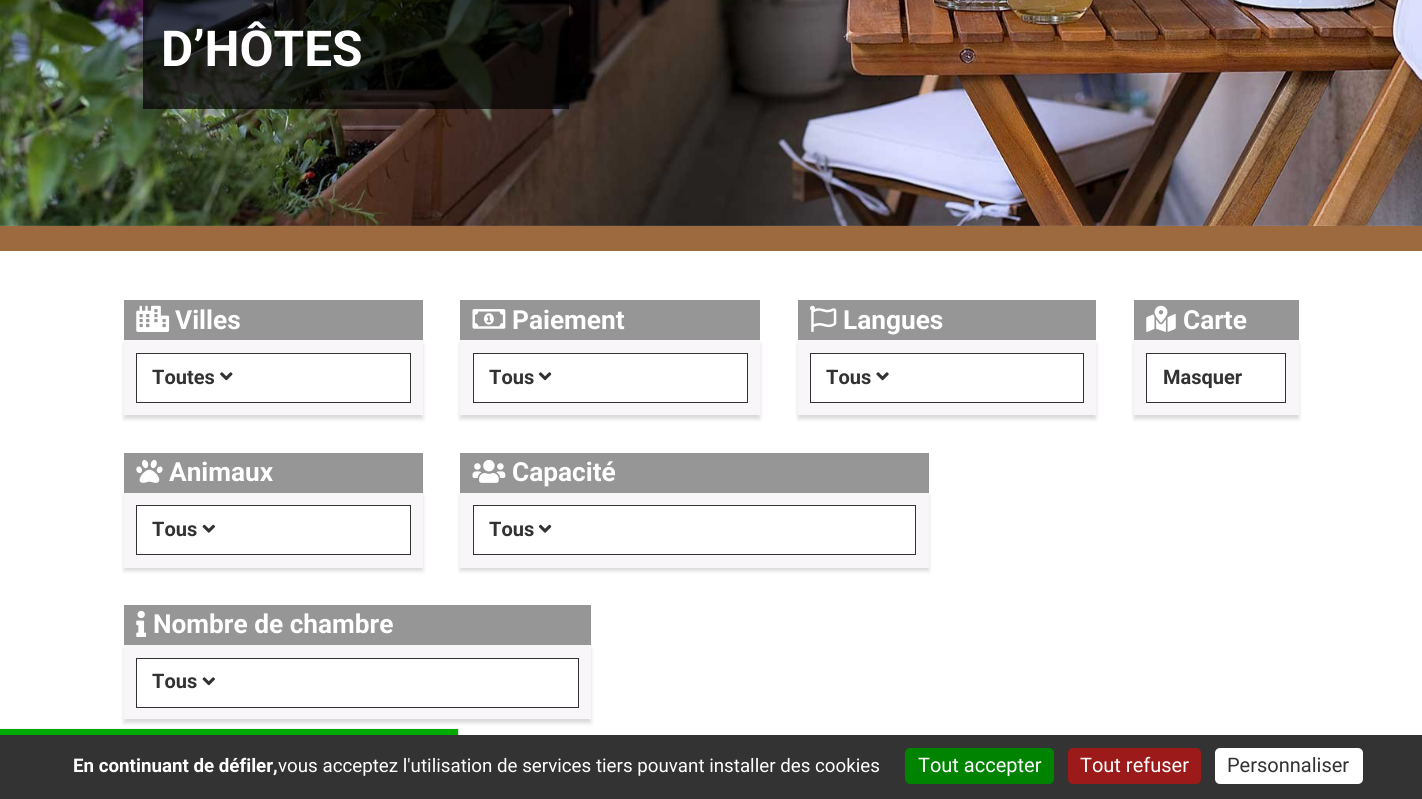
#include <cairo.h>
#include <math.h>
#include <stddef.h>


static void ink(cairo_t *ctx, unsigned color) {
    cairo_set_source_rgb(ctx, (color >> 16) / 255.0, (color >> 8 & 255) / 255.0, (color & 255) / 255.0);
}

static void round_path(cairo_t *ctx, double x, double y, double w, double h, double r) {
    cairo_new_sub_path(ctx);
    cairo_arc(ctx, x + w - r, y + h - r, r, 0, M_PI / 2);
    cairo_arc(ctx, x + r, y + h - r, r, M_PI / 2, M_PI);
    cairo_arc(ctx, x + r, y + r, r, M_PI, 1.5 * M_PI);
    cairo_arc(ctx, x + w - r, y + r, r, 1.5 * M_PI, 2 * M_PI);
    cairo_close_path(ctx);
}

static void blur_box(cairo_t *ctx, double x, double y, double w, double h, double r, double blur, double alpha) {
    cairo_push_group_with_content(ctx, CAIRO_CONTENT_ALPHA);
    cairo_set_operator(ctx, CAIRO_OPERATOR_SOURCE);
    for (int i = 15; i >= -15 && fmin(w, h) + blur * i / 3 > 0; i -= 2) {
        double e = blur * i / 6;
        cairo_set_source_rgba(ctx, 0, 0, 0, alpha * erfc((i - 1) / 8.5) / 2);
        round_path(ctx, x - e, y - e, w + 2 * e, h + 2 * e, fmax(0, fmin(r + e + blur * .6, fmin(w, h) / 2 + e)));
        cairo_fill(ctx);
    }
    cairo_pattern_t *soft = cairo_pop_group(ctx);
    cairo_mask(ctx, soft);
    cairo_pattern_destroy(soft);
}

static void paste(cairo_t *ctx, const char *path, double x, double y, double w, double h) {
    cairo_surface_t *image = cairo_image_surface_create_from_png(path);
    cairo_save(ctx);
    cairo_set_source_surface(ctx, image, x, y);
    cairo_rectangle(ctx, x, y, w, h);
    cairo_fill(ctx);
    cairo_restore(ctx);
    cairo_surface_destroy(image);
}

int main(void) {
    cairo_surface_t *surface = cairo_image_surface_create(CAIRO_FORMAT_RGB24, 1422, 799);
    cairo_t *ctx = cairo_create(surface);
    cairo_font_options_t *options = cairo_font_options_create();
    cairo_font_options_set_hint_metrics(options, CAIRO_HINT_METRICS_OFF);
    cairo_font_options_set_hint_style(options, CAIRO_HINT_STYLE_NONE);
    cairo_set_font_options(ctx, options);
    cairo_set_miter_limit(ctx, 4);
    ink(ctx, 0xFFFFFF);
    cairo_paint(ctx);
    paste(ctx, "media/1.png", 0, 0, 1422, 226);
    cairo_set_source_rgba(ctx, 0, 0, 0, 0.7);
    cairo_rectangle(ctx, 143, 0, 426, 109);
    cairo_fill(ctx);
    cairo_select_font_face(ctx, "Roboto", CAIRO_FONT_SLANT_NORMAL, CAIRO_FONT_WEIGHT_BOLD);
    cairo_set_font_size(ctx, 49.5);
    ink(ctx, 0xFFFFFF);
    cairo_move_to(ctx, 161, 66);
    cairo_show_text(ctx, "D’HÔTES");
    ink(ctx, 0x9D693F);
    cairo_rectangle(ctx, 0, 226, 1422, 25);
    cairo_fill(ctx);
    ink(ctx, 0x969696);
    cairo_rectangle(ctx, 124, 300, 299, 40);
    cairo_fill(ctx);
    paste(ctx, "media/2.png", 136, 305, 34, 27);
    cairo_set_font_size(ctx, 26.25);
    ink(ctx, 0xFFFFFF);
    cairo_move_to(ctx, 175, 329);
    cairo_show_text(ctx, "Villes");
    ink(ctx, 0x000000);
    blur_box(ctx, 124, 344, 299, 75, 0, 2, 0.15);
    ink(ctx, 0xF8F6F8);
    cairo_rectangle(ctx, 124, 340, 299, 75);
    cairo_fill(ctx);
    ink(ctx, 0xFFFFFF);
    cairo_rectangle(ctx, 136.5, 353.5, 274, 49);
    cairo_fill_preserve(ctx);
    ink(ctx, 0x323232);
    cairo_set_line_width(ctx, 1);
    cairo_stroke(ctx);
    cairo_set_font_size(ctx, 20);
    cairo_move_to(ctx, 152, 384);
    cairo_show_text(ctx, "Toutes");
    paste(ctx, "media/3.png", 220, 372, 13, 9);
    ink(ctx, 0x969696);
    cairo_rectangle(ctx, 460, 300, 300, 40);
    cairo_fill(ctx);
    paste(ctx, "media/4.png", 472, 309, 34, 20);
    cairo_set_font_size(ctx, 26.25);
    ink(ctx, 0xFFFFFF);
    cairo_move_to(ctx, 512, 329);
    cairo_show_text(ctx, "Paiement");
    ink(ctx, 0x000000);
    blur_box(ctx, 460, 344, 300, 75, 0, 2, 0.15);
    ink(ctx, 0xF8F6F8);
    cairo_rectangle(ctx, 460, 340, 300, 75);
    cairo_fill(ctx);
    ink(ctx, 0xFFFFFF);
    cairo_rectangle(ctx, 473.5, 353.5, 274, 49);
    cairo_fill_preserve(ctx);
    ink(ctx, 0x323232);
    cairo_stroke(ctx);
    cairo_set_font_size(ctx, 20);
    cairo_move_to(ctx, 489, 384);
    cairo_show_text(ctx, "Tous");
    paste(ctx, "media/5.png", 538, 372, 14, 9);
    ink(ctx, 0x969696);
    cairo_rectangle(ctx, 798, 300, 298, 40);
    cairo_fill(ctx);
    paste(ctx, "media/6.png", 810, 305, 27, 27);
    cairo_set_font_size(ctx, 26.25);
    ink(ctx, 0xFFFFFF);
    cairo_move_to(ctx, 843, 329);
    cairo_show_text(ctx, "Langues");
    ink(ctx, 0x000000);
    blur_box(ctx, 798, 344, 298, 75, 0, 2, 0.15);
    ink(ctx, 0xF8F6F8);
    cairo_rectangle(ctx, 798, 340, 298, 75);
    cairo_fill(ctx);
    ink(ctx, 0xFFFFFF);
    cairo_rectangle(ctx, 810.5, 353.5, 273, 49);
    cairo_fill_preserve(ctx);
    ink(ctx, 0x323232);
    cairo_stroke(ctx);
    cairo_set_font_size(ctx, 20);
    cairo_move_to(ctx, 826, 384);
    cairo_show_text(ctx, "Tous");
    paste(ctx, "media/7.png", 876, 372, 13, 9);
    ink(ctx, 0x969696);
    cairo_rectangle(ctx, 124, 453, 299, 40);
    cairo_fill(ctx);
    paste(ctx, "media/8.png", 136, 459, 27, 24);
    cairo_set_font_size(ctx, 26.25);
    ink(ctx, 0xFFFFFF);
    cairo_move_to(ctx, 169, 481);
    cairo_show_text(ctx, "Animaux");
    ink(ctx, 0x000000);
    blur_box(ctx, 124, 496, 299, 75, 0, 2, 0.15);
    ink(ctx, 0xF8F6F8);
    cairo_rectangle(ctx, 124, 493, 299, 75);
    cairo_fill(ctx);
    ink(ctx, 0xFFFFFF);
    cairo_rectangle(ctx, 136.5, 505.5, 274, 49);
    cairo_fill_preserve(ctx);
    ink(ctx, 0x323232);
    cairo_stroke(ctx);
    cairo_set_font_size(ctx, 20);
    cairo_move_to(ctx, 152, 536);
    cairo_show_text(ctx, "Tous");
    paste(ctx, "media/9.png", 202, 524, 13, 9);
    ink(ctx, 0x969696);
    cairo_rectangle(ctx, 460, 453, 469, 40);
    cairo_fill(ctx);
    paste(ctx, "media/10.png", 472, 459, 34, 24);
    cairo_set_font_size(ctx, 26.25);
    ink(ctx, 0xFFFFFF);
    cairo_move_to(ctx, 512, 481);
    cairo_show_text(ctx, "Capacité");
    ink(ctx, 0x000000);
    blur_box(ctx, 460, 496, 469, 75, 0, 2, 0.15);
    ink(ctx, 0xF8F6F8);
    cairo_rectangle(ctx, 460, 493, 469, 75);
    cairo_fill(ctx);
    ink(ctx, 0xFFFFFF);
    cairo_rectangle(ctx, 473.5, 505.5, 442, 49);
    cairo_fill_preserve(ctx);
    ink(ctx, 0x323232);
    cairo_stroke(ctx);
    cairo_set_font_size(ctx, 20);
    cairo_move_to(ctx, 489, 536);
    cairo_show_text(ctx, "Tous");
    paste(ctx, "media/11.png", 538, 524, 14, 9);
    ink(ctx, 0x969696);
    cairo_rectangle(ctx, 124, 605, 467, 40);
    cairo_fill(ctx);
    paste(ctx, "media/12.png", 136, 610, 11, 27);
    cairo_set_font_size(ctx, 26.25);
    ink(ctx, 0xFFFFFF);
    cairo_move_to(ctx, 153, 633);
    cairo_show_text(ctx, "Nombre de chambre");
    ink(ctx, 0x000000);
    blur_box(ctx, 124, 649, 467, 74, 0, 2, 0.15);
    ink(ctx, 0xF8F6F8);
    cairo_rectangle(ctx, 124, 645, 467, 74);
    cairo_fill(ctx);
    ink(ctx, 0xFFFFFF);
    cairo_rectangle(ctx, 136.5, 658.5, 442, 49);
    cairo_fill_preserve(ctx);
    ink(ctx, 0x323232);
    cairo_stroke(ctx);
    cairo_set_font_size(ctx, 20);
    cairo_move_to(ctx, 152, 688);
    cairo_show_text(ctx, "Tous");
    paste(ctx, "media/13.png", 202, 677, 13, 9);
    ink(ctx, 0x969696);
    cairo_rectangle(ctx, 1134, 300, 165, 40);
    cairo_fill(ctx);
    paste(ctx, "media/14.png", 1146, 305, 30, 27);
    cairo_set_font_size(ctx, 26.25);
    ink(ctx, 0xFFFFFF);
    cairo_move_to(ctx, 1183, 329);
    cairo_show_text(ctx, "Carte");
    ink(ctx, 0x000000);
    blur_box(ctx, 1134, 344, 165, 75, 0, 2, 0.15);
    ink(ctx, 0xF8F6F8);
    cairo_rectangle(ctx, 1134, 340, 165, 75);
    cairo_fill(ctx);
    ink(ctx, 0xFFFFFF);
    cairo_rectangle(ctx, 1146.5, 353.5, 139, 49);
    cairo_fill_preserve(ctx);
    ink(ctx, 0x323232);
    cairo_stroke(ctx);
    cairo_set_font_size(ctx, 20);
    cairo_move_to(ctx, 1163, 384);
    cairo_show_text(ctx, "Masquer");
    ink(ctx, 0x555555);
    blur_box(ctx, 0, 730, 458, 6, 0, 1, 1);
    ink(ctx, 0xFFFFFF);
    blur_box(ctx, 0, 729, 458, 6, 0, 1, 1);
    ink(ctx, 0x00AA00);
    cairo_rectangle(ctx, 0, 729, 458, 6);
    cairo_fill(ctx);
    ink(ctx, 0x333333);
    cairo_rectangle(ctx, 0, 735, 1422, 64);
    cairo_fill(ctx);
    cairo_set_font_size(ctx, 18.75);
    ink(ctx, 0xFFFFFF);
    cairo_move_to(ctx, 73, 772);
    cairo_show_text(ctx, "En continuant de défiler,");
    cairo_select_font_face(ctx, "Roboto", CAIRO_FONT_SLANT_NORMAL, CAIRO_FONT_WEIGHT_NORMAL);
    cairo_move_to(ctx, 278, 772);
    cairo_show_text(ctx, "vous acceptez l'utilisation de services tiers pouvant installer des cookies");
    ink(ctx, 0x008300);
    round_path(ctx, 905, 748, 149, 36, 5);
    cairo_fill(ctx);
    cairo_set_font_size(ctx, 20);
    ink(ctx, 0xFFFFFF);
    cairo_move_to(ctx, 918, 772);
    cairo_show_text(ctx, "Tout accepter");
    ink(ctx, 0x9C1A1A);
    round_path(ctx, 1068, 748, 133, 36, 5);
    cairo_fill(ctx);
    ink(ctx, 0xFFFFFF);
    cairo_move_to(ctx, 1080, 772);
    cairo_show_text(ctx, "Tout refuser");
    round_path(ctx, 1215, 748, 148, 36, 5);
    cairo_fill(ctx);
    ink(ctx, 0x323232);
    cairo_move_to(ctx, 1227, 772);
    cairo_show_text(ctx, "Personnaliser");
    cairo_surface_write_to_png(surface, "image.png");
    cairo_font_options_destroy(options);
    cairo_destroy(ctx);
    cairo_surface_destroy(surface);
    return 0;
}
